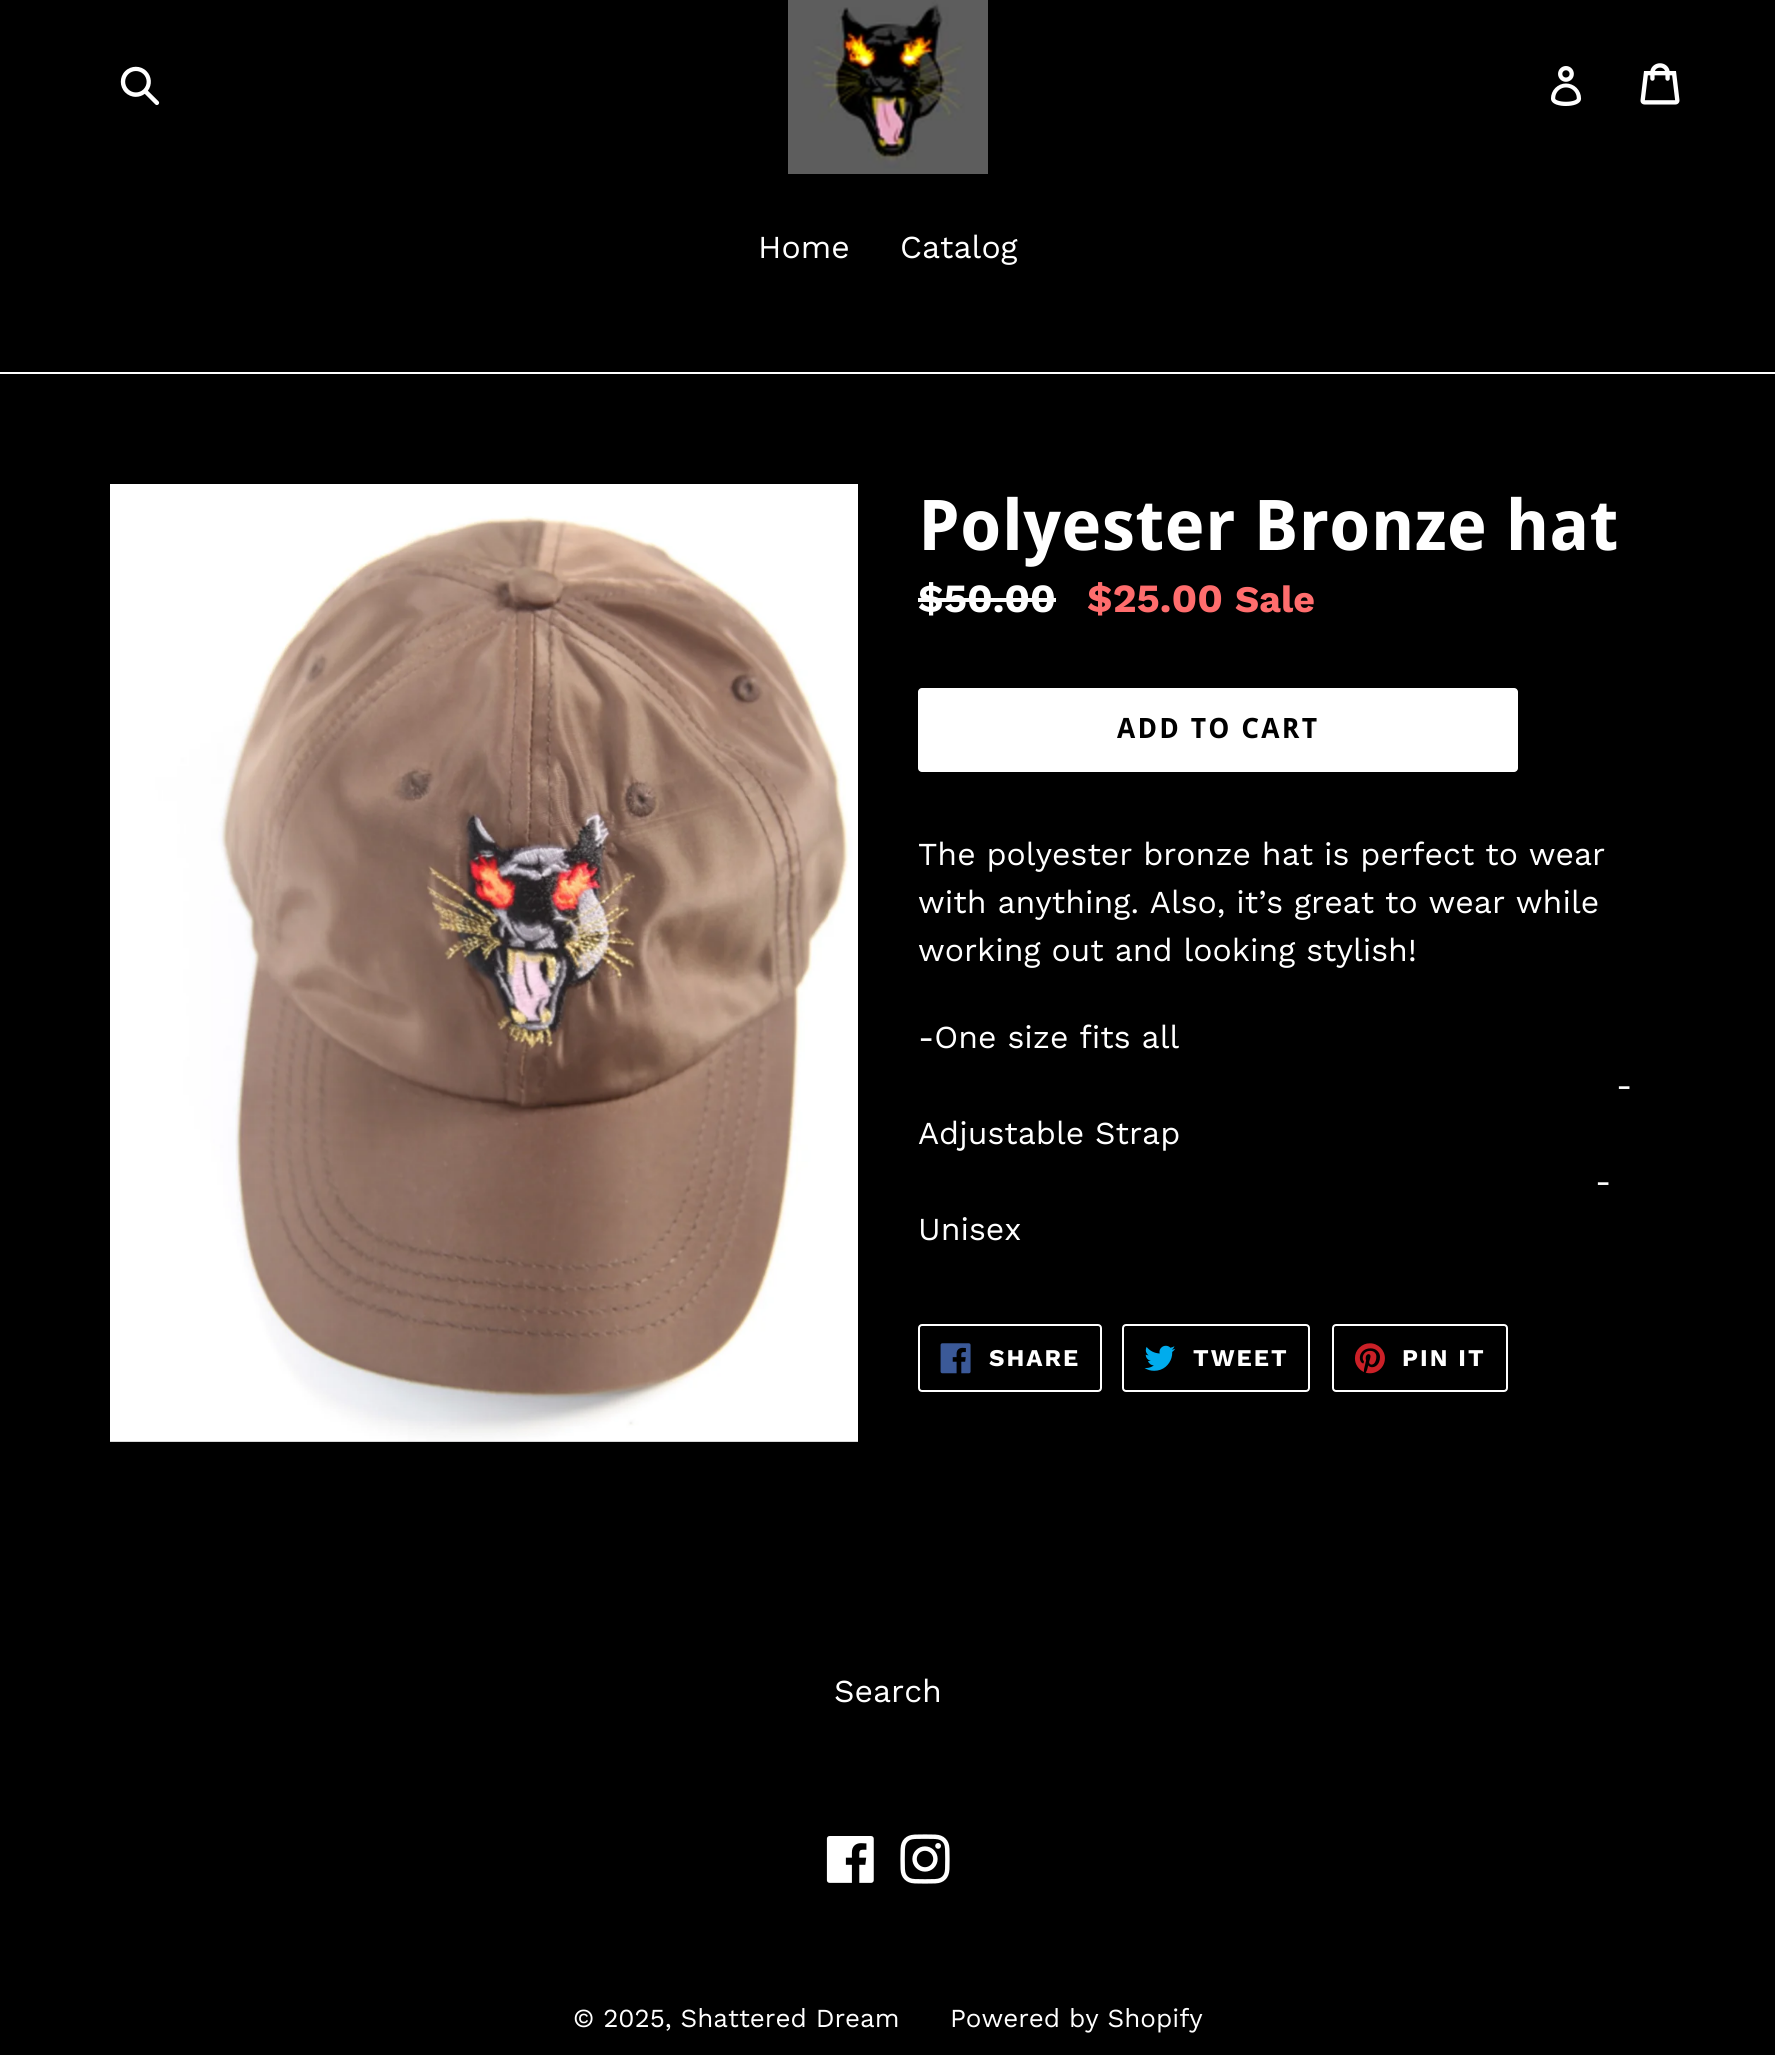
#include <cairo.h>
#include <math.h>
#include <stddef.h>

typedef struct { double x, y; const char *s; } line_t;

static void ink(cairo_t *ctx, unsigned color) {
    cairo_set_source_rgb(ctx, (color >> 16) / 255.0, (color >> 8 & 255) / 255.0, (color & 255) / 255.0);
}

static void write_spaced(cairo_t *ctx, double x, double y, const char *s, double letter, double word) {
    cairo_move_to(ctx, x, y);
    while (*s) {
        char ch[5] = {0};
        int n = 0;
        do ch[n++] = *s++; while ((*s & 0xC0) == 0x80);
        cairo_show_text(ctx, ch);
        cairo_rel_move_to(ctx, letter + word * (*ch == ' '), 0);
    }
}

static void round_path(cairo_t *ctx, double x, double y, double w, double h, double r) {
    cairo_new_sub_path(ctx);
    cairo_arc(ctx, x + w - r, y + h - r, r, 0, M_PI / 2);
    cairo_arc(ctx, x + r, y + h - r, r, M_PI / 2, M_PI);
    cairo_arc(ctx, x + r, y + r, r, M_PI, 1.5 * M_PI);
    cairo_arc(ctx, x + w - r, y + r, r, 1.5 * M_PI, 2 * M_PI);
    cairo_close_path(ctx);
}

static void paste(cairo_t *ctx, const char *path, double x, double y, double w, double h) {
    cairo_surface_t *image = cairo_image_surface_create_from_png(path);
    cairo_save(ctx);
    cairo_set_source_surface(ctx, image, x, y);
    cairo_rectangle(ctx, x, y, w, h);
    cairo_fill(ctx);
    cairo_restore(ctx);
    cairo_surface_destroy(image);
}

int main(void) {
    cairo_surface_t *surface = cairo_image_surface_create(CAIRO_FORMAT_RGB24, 1775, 2055);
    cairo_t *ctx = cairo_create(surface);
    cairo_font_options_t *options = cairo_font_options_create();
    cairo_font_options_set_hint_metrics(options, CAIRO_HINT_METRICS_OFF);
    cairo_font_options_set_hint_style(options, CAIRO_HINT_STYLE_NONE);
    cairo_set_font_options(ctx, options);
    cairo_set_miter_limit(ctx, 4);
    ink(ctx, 0x000000);
    cairo_paint(ctx);
    paste(ctx, "media/1.png", 120, 66, 40, 40);
    paste(ctx, "media/2.png", 788, 0, 200, 174);
    paste(ctx, "media/3.png", 1551, 66, 31, 40);
    paste(ctx, "media/4.png", 1640, 63, 40, 42);
    ink(ctx, 0xFFFFFF);
    cairo_rectangle(ctx, 0, 372, 1775, 2);
    cairo_fill(ctx);
    cairo_select_font_face(ctx, "Work Sans", CAIRO_FONT_SLANT_NORMAL, CAIRO_FONT_WEIGHT_NORMAL);
    cairo_set_font_size(ctx, 32);
    cairo_move_to(ctx, 758, 258);
    cairo_show_text(ctx, "Home");
    cairo_move_to(ctx, 900, 258);
    cairo_show_text(ctx, "Catalog");
    paste(ctx, "media/5.png", 110, 484, 748, 958);
    cairo_select_font_face(ctx, "Droid Sans", CAIRO_FONT_SLANT_NORMAL, CAIRO_FONT_WEIGHT_BOLD);
    cairo_set_font_size(ctx, 70);
    cairo_move_to(ctx, 918, 550);
    cairo_show_text(ctx, "Polyester Bronze hat");
    cairo_select_font_face(ctx, "Work Sans", CAIRO_FONT_SLANT_NORMAL, CAIRO_FONT_WEIGHT_BOLD);
    cairo_set_font_size(ctx, 40);
    cairo_move_to(ctx, 918, 612);
    cairo_show_text(ctx, "$50.00");
    ink(ctx, 0xFAFAFA);
    cairo_rectangle(ctx, 918, 598, 138, 4);
    cairo_fill(ctx);
    ink(ctx, 0xFF6D6D);
    cairo_move_to(ctx, 1087, 612);
    cairo_show_text(ctx, "$25.00");
    cairo_set_font_size(ctx, 37.5);
    cairo_move_to(ctx, 1235, 612);
    cairo_show_text(ctx, "Sale");
    ink(ctx, 0xFFFFFF);
    round_path(ctx, 918, 688, 600, 84, 4);
    cairo_fill(ctx);
    cairo_select_font_face(ctx, "Droid Sans", CAIRO_FONT_SLANT_NORMAL, CAIRO_FONT_WEIGHT_BOLD);
    cairo_set_font_size(ctx, 28);
    ink(ctx, 0x000000);
    write_spaced(ctx, 1117, 738, "ADD TO CART", 2.25, 0);
    cairo_select_font_face(ctx, "Work Sans", CAIRO_FONT_SLANT_NORMAL, CAIRO_FONT_WEIGHT_NORMAL);
    cairo_set_font_size(ctx, 32);
    ink(ctx, 0xFFFFFF);
    {
        static const line_t items[] = {
            {918, 865, "The polyester bronze hat is perfect to wear"},
            {918, 913, "with anything. Also, it’s great to wear while"},
            {918, 961, "working out and looking stylish!"},
            {918, 1048, "-One size fits all"},
            {1616, 1096, "-"},
            {918, 1144, "Adjustable Strap"},
            {1595, 1192, "-"},
            {918, 1240, "Unisex"},
        };
        for (size_t i = 0; i < sizeof items / sizeof *items; i++) {
            cairo_move_to(ctx, items[i].x, items[i].y);
            cairo_show_text(ctx, items[i].s);
        }
    }
    round_path(ctx, 919, 1325, 182, 66, 3);
    cairo_stroke(ctx);
    paste(ctx, "media/6.png", 940, 1343, 31, 31);
    cairo_select_font_face(ctx, "Work Sans", CAIRO_FONT_SLANT_NORMAL, CAIRO_FONT_WEIGHT_BOLD);
    cairo_set_font_size(ctx, 24);
    write_spaced(ctx, 989, 1366, "SHARE", 2, 0);
    round_path(ctx, 1123, 1325, 186, 66, 3);
    cairo_stroke(ctx);
    paste(ctx, "media/7.png", 1144, 1345, 32, 26);
    write_spaced(ctx, 1193, 1366, "TWEET", 2, 0);
    round_path(ctx, 1333, 1325, 174, 66, 3);
    cairo_stroke(ctx);
    paste(ctx, "media/8.png", 1354, 1343, 31, 31);
    write_spaced(ctx, 1402, 1366, "PIN IT", 2, 0);
    cairo_select_font_face(ctx, "Work Sans", CAIRO_FONT_SLANT_NORMAL, CAIRO_FONT_WEIGHT_NORMAL);
    cairo_set_font_size(ctx, 32);
    cairo_move_to(ctx, 834, 1702);
    cairo_show_text(ctx, "Search");
    paste(ctx, "media/9.png", 826, 1836, 48, 47);
    paste(ctx, "media/10.png", 900, 1834, 50, 50);
    cairo_set_font_size(ctx, 26);
    cairo_move_to(ctx, 573, 2027);
    cairo_show_text(ctx, "© 2025, Shattered Dream");
    cairo_move_to(ctx, 950, 2027);
    cairo_show_text(ctx, "Powered by Shopify");
    cairo_surface_write_to_png(surface, "image.png");
    cairo_font_options_destroy(options);
    cairo_destroy(ctx);
    cairo_surface_destroy(surface);
    return 0;
}
